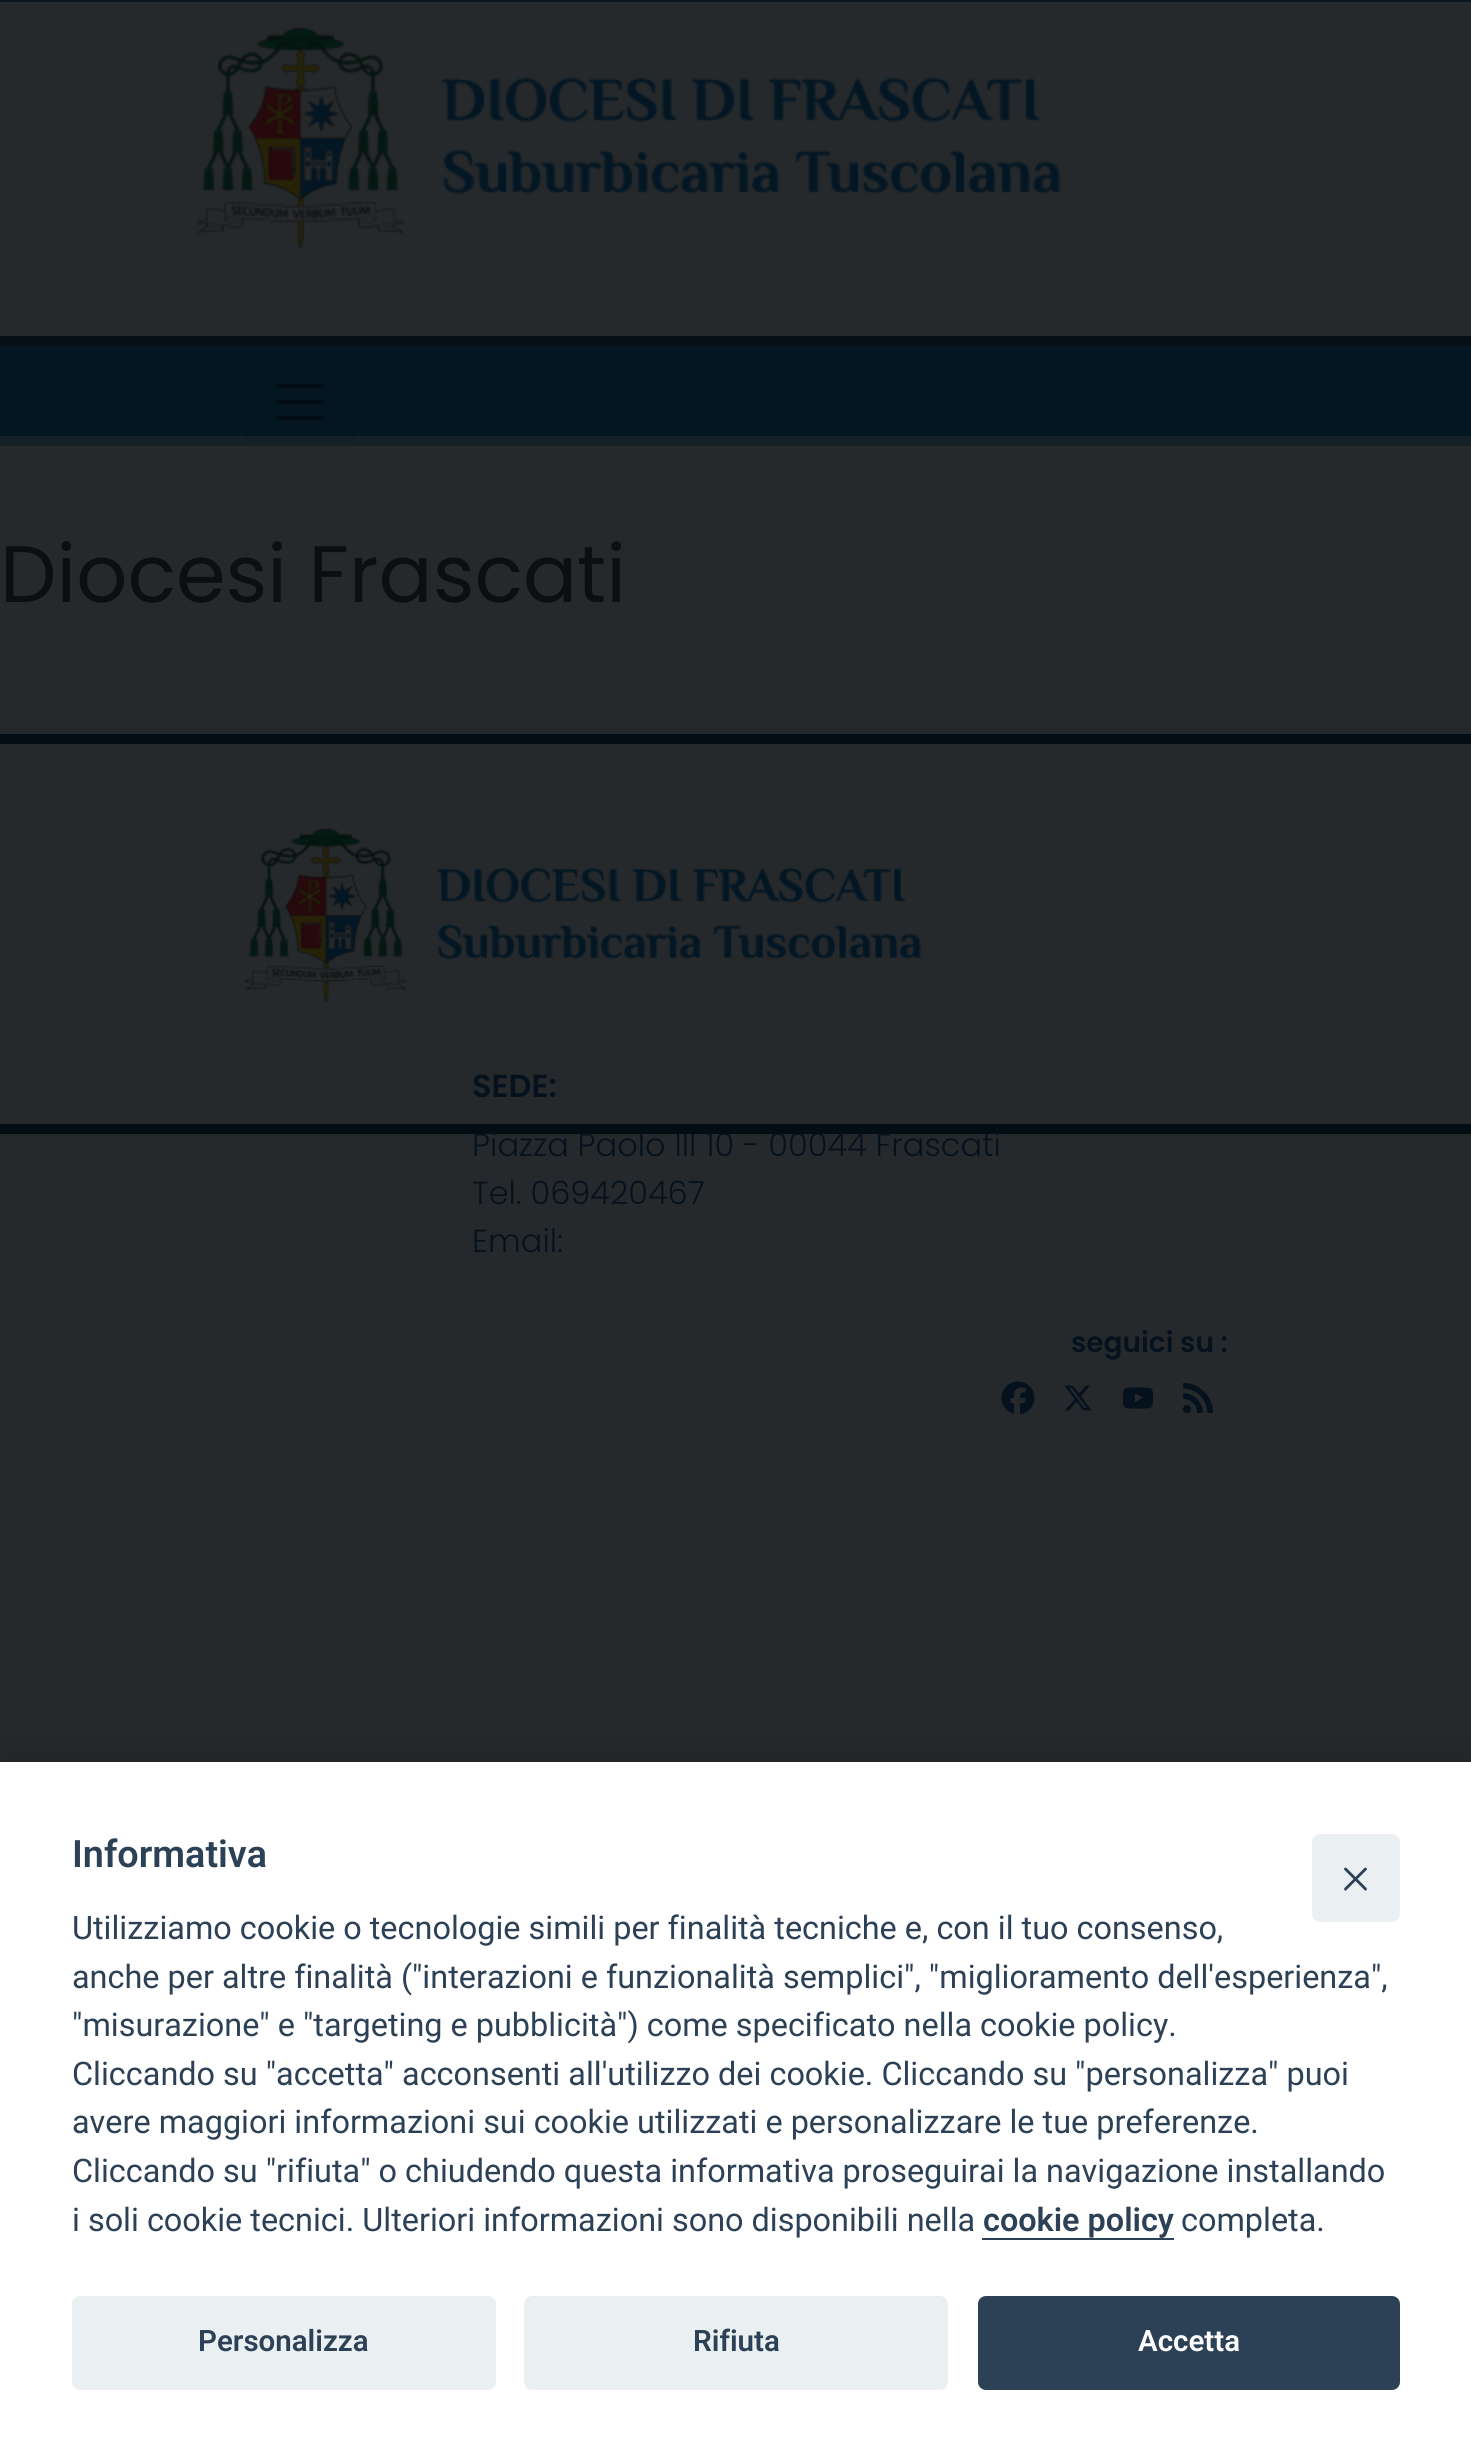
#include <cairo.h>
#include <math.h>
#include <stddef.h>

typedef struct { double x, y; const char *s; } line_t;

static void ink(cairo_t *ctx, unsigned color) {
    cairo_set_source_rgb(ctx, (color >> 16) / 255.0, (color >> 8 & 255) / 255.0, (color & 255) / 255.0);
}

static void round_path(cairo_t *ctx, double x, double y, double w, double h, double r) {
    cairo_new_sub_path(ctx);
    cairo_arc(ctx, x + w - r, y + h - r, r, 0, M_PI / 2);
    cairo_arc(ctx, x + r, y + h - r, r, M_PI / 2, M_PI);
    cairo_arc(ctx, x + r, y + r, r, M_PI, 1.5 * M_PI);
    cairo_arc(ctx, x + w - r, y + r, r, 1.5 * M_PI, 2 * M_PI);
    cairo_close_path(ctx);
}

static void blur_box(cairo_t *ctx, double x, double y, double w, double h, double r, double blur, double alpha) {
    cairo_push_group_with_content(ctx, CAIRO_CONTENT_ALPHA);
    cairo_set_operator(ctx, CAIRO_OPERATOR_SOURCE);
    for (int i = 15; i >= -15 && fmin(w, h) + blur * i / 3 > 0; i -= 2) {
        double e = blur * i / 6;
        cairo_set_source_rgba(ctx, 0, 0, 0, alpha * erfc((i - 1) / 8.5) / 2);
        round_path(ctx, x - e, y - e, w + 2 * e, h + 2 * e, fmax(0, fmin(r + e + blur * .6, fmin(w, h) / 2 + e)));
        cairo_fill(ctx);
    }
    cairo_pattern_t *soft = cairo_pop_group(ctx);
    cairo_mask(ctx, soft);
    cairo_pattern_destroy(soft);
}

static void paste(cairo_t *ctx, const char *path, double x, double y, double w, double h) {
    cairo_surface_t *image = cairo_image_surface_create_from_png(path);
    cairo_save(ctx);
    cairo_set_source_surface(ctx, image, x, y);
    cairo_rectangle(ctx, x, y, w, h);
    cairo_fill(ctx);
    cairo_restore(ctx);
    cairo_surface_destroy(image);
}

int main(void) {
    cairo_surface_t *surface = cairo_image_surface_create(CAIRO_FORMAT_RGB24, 1471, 2461);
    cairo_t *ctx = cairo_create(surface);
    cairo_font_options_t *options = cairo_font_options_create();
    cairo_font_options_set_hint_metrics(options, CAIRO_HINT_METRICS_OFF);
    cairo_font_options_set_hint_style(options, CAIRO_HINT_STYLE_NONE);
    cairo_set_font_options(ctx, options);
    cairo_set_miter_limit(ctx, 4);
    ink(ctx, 0x26292B);
    cairo_paint(ctx);
    ink(ctx, 0x0A151F);
    cairo_rectangle(ctx, 0, 0, 1471, 2);
    cairo_fill(ctx);
    ink(ctx, 0x050F15);
    cairo_rectangle(ctx, 0, 336, 1471, 10);
    cairo_fill(ctx);
    paste(ctx, "media/1.png", 196, 27, 865, 222);
    ink(ctx, 0x031622);
    cairo_rectangle(ctx, 0, 346, 1471, 90);
    cairo_fill(ctx);
    ink(ctx, 0x152027);
    cairo_rectangle(ctx, 0, 436, 1471, 10);
    cairo_fill(ctx);
    round_path(ctx, 245, 363, 110, 78, 7);
    cairo_set_source_rgba(ctx, 0.012, 0.02, 0.027, 0.1);
    cairo_stroke(ctx);
    cairo_new_path(ctx);
    cairo_move_to(ctx, 278, 386);
    cairo_line_to(ctx, 322, 386);
    cairo_move_to(ctx, 278, 402);
    cairo_line_to(ctx, 322, 402);
    cairo_move_to(ctx, 278, 418);
    cairo_line_to(ctx, 322, 418);
    ink(ctx, 0x030D13);
    cairo_set_line_width(ctx, 4);
    cairo_set_line_cap(ctx, CAIRO_LINE_CAP_ROUND);
    cairo_stroke(ctx);
    cairo_select_font_face(ctx, "Poppins", CAIRO_FONT_SLANT_NORMAL, CAIRO_FONT_WEIGHT_NORMAL);
    cairo_set_font_size(ctx, 80);
    ink(ctx, 0x0C0E0F);
    cairo_move_to(ctx, 0, 602);
    cairo_show_text(ctx, "Diocesi Frascati");
    ink(ctx, 0x030D14);
    cairo_rectangle(ctx, 0, 734, 1471, 10);
    cairo_fill(ctx);
    cairo_rectangle(ctx, 0, 1124, 1471, 10);
    cairo_fill(ctx);
    paste(ctx, "media/2.png", 244, 828, 678, 174);
    cairo_select_font_face(ctx, "Poppins SemiBold", CAIRO_FONT_SLANT_NORMAL, CAIRO_FONT_WEIGHT_NORMAL);
    cairo_set_font_size(ctx, 32);
    ink(ctx, 0x05121D);
    cairo_move_to(ctx, 472, 1097);
    cairo_show_text(ctx, "SEDE:");
    cairo_select_font_face(ctx, "Poppins Light", CAIRO_FONT_SLANT_NORMAL, CAIRO_FONT_WEIGHT_NORMAL);
    {
        static const line_t items[] = {
            {472, 1156, "Piazza Paolo III 10 - 00044 Frascati"},
            {472, 1204, "Tel. 069420467"},
            {472, 1252, "Email:"},
        };
        for (size_t i = 0; i < sizeof items / sizeof *items; i++) {
            cairo_move_to(ctx, items[i].x, items[i].y);
            cairo_show_text(ctx, items[i].s);
        }
    }
    cairo_select_font_face(ctx, "Poppins SemiBold", CAIRO_FONT_SLANT_NORMAL, CAIRO_FONT_WEIGHT_NORMAL);
    cairo_set_font_size(ctx, 28);
    cairo_move_to(ctx, 1071, 1352);
    cairo_show_text(ctx, "seguici su :");
    paste(ctx, "media/3.png", 1001, 1381, 34, 34);
    paste(ctx, "media/4.png", 1064, 1385, 28, 26);
    paste(ctx, "media/5.png", 1122, 1387, 32, 22);
    paste(ctx, "media/6.png", 1182, 1382, 32, 32);
    ink(ctx, 0x020203);
    blur_box(ctx, 0, 1784, 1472, 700, 0, 34, 0.28);
    ink(ctx, 0xFFFFFF);
    cairo_rectangle(ctx, 0, 1762, 1471, 699);
    cairo_fill(ctx);
    ink(ctx, 0xEAEFF2);
    round_path(ctx, 1312, 1834, 88, 88, 8);
    cairo_fill(ctx);
    ink(ctx, 0x2D4156);
    cairo_new_path(ctx);
    cairo_move_to(ctx, 1366.5, 1868);
    cairo_curve_to(ctx, 1367, 1868.5, 1367, 1869.5, 1366.5, 1870);
    cairo_line_to(ctx, 1346.5, 1890);
    cairo_curve_to(ctx, 1346, 1891, 1345, 1891, 1344.5, 1890);
    cairo_curve_to(ctx, 1344, 1889.5, 1344, 1888.5, 1344.5, 1888);
    cairo_line_to(ctx, 1364.5, 1868);
    cairo_curve_to(ctx, 1365, 1867.5, 1366, 1867.5, 1366.5, 1868);
    cairo_close_path(ctx);
    cairo_fill(ctx);
    cairo_new_path(ctx);
    cairo_move_to(ctx, 1344.5, 1868);
    cairo_curve_to(ctx, 1345, 1867.5, 1346, 1867.5, 1346.5, 1868);
    cairo_line_to(ctx, 1366.5, 1888);
    cairo_curve_to(ctx, 1367, 1888.5, 1367, 1889.5, 1366.5, 1890);
    cairo_curve_to(ctx, 1366, 1891, 1365, 1891, 1364.5, 1890);
    cairo_line_to(ctx, 1344.5, 1870);
    cairo_curve_to(ctx, 1344, 1869.5, 1344, 1868.5, 1344.5, 1868);
    cairo_close_path(ctx);
    cairo_fill(ctx);
    cairo_select_font_face(ctx, "Roboto SemiBold", CAIRO_FONT_SLANT_NORMAL, CAIRO_FONT_WEIGHT_NORMAL);
    cairo_set_font_size(ctx, 37.75);
    cairo_move_to(ctx, 72, 1867);
    cairo_show_text(ctx, "Informativa");
    cairo_select_font_face(ctx, "Roboto", CAIRO_FONT_SLANT_NORMAL, CAIRO_FONT_WEIGHT_NORMAL);
    cairo_set_font_size(ctx, 32.4);
    {
        static const line_t items[] = {
            {72, 1939, "Utilizziamo cookie o tecnologie simili per finalità tecniche e, con il tuo consenso,"},
            {72, 1988, "anche per altre finalità (\"interazioni e funzionalità semplici\", \"miglioramento dell'esperienza\","},
            {72, 2036, "\"misurazione\" e \"targeting e pubblicità\") come specificato nella cookie policy."},
            {72, 2085, "Cliccando su \"accetta\" acconsenti all'utilizzo dei cookie. Cliccando su \"personalizza\" puoi"},
            {72, 2133, "avere maggiori informazioni sui cookie utilizzati e personalizzare le tue preferenze."},
            {72, 2182, "Cliccando su \"rifiuta\" o chiudendo questa informativa proseguirai la navigazione installando"},
            {72, 2231, "i soli cookie tecnici. Ulteriori informazioni sono disponibili nella"},
        };
        for (size_t i = 0; i < sizeof items / sizeof *items; i++) {
            cairo_move_to(ctx, items[i].x, items[i].y);
            cairo_show_text(ctx, items[i].s);
        }
    }
    cairo_select_font_face(ctx, "Roboto SemiBold", CAIRO_FONT_SLANT_NORMAL, CAIRO_FONT_WEIGHT_NORMAL);
    cairo_move_to(ctx, 983, 2231);
    cairo_show_text(ctx, "cookie policy");
    cairo_rectangle(ctx, 982, 2238, 192, 2);
    cairo_fill(ctx);
    cairo_select_font_face(ctx, "Roboto", CAIRO_FONT_SLANT_NORMAL, CAIRO_FONT_WEIGHT_NORMAL);
    cairo_move_to(ctx, 1181, 2231);
    cairo_show_text(ctx, "completa.");
    ink(ctx, 0xEAEFF2);
    round_path(ctx, 72, 2296, 424, 94, 8);
    cairo_fill(ctx);
    cairo_select_font_face(ctx, "Roboto SemiBold", CAIRO_FONT_SLANT_NORMAL, CAIRO_FONT_WEIGHT_NORMAL);
    cairo_set_font_size(ctx, 29.5);
    ink(ctx, 0x2D4156);
    cairo_move_to(ctx, 198, 2351);
    cairo_show_text(ctx, "Personalizza");
    ink(ctx, 0xEAEFF2);
    round_path(ctx, 524, 2296, 424, 94, 8);
    cairo_fill(ctx);
    ink(ctx, 0x2D4156);
    cairo_move_to(ctx, 693, 2351);
    cairo_show_text(ctx, "Rifiuta");
    round_path(ctx, 978, 2296, 422, 94, 8);
    cairo_fill(ctx);
    ink(ctx, 0xFFFFFF);
    cairo_move_to(ctx, 1138, 2351);
    cairo_show_text(ctx, "Accetta");
    cairo_surface_write_to_png(surface, "image.png");
    cairo_font_options_destroy(options);
    cairo_destroy(ctx);
    cairo_surface_destroy(surface);
    return 0;
}
